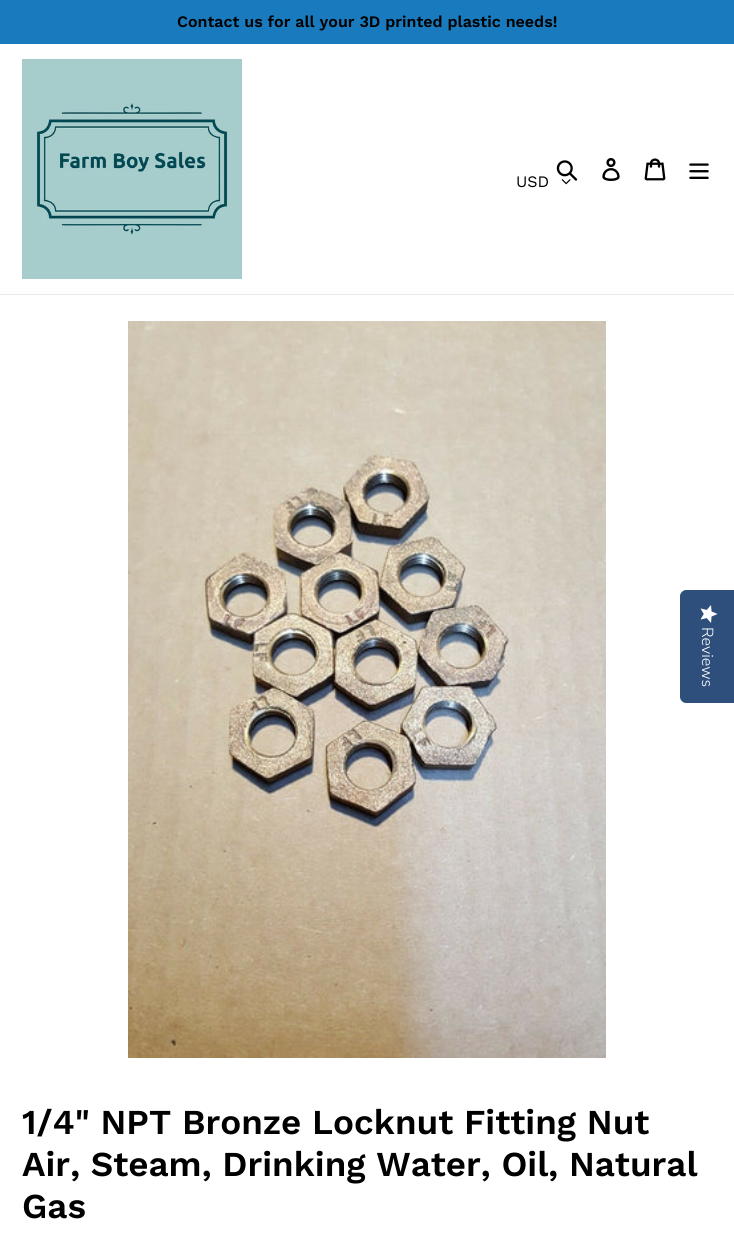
#include <cairo.h>
#include <math.h>
#include <stddef.h>

typedef struct { double x, y; const char *s; } line_t;

static void ink(cairo_t *ctx, unsigned color) {
    cairo_set_source_rgb(ctx, (color >> 16) / 255.0, (color >> 8 & 255) / 255.0, (color & 255) / 255.0);
}

static void paste(cairo_t *ctx, const char *path, double x, double y, double w, double h) {
    cairo_surface_t *image = cairo_image_surface_create_from_png(path);
    cairo_save(ctx);
    cairo_set_source_surface(ctx, image, x, y);
    cairo_rectangle(ctx, x, y, w, h);
    cairo_fill(ctx);
    cairo_restore(ctx);
    cairo_surface_destroy(image);
}

int main(void) {
    cairo_surface_t *surface = cairo_image_surface_create(CAIRO_FORMAT_RGB24, 734, 1235);
    cairo_t *ctx = cairo_create(surface);
    cairo_font_options_t *options = cairo_font_options_create();
    cairo_font_options_set_hint_metrics(options, CAIRO_HINT_METRICS_OFF);
    cairo_font_options_set_hint_style(options, CAIRO_HINT_STYLE_NONE);
    cairo_set_font_options(ctx, options);
    cairo_set_miter_limit(ctx, 4);
    ink(ctx, 0xFFFFFF);
    cairo_paint(ctx);
    ink(ctx, 0x197BBD);
    cairo_rectangle(ctx, 0, 0, 734, 44);
    cairo_fill(ctx);
    cairo_select_font_face(ctx, "Work Sans SemiBold", CAIRO_FONT_SLANT_NORMAL, CAIRO_FONT_WEIGHT_NORMAL);
    cairo_set_font_size(ctx, 16);
    ink(ctx, 0x000000);
    cairo_move_to(ctx, 177, 27);
    cairo_show_text(ctx, "Contact us for all your 3D printed plastic needs!");
    ink(ctx, 0xE8E9EB);
    cairo_rectangle(ctx, 0, 294, 734, 1);
    cairo_fill(ctx);
    paste(ctx, "media/1.png", 22, 59, 220, 220);
    paste(ctx, "media/2.png", 556, 160, 22, 21);
    paste(ctx, "media/3.png", 602, 158, 18, 23);
    paste(ctx, "media/4.png", 644, 158, 22, 23);
    paste(ctx, "media/5.png", 689, 163, 20, 16);
    cairo_select_font_face(ctx, "Work Sans", CAIRO_FONT_SLANT_NORMAL, CAIRO_FONT_WEIGHT_NORMAL);
    ink(ctx, 0x000000);
    cairo_move_to(ctx, 516, 187);
    cairo_show_text(ctx, "USD");
    paste(ctx, "media/6.png", 561, 179, 10, 6);
    ink(ctx, 0x2E4F7C);
    cairo_new_path(ctx);
    cairo_move_to(ctx, 734, 590);
    cairo_line_to(ctx, 734, 703);
    cairo_line_to(ctx, 686, 703);
    cairo_curve_to(ctx, 683, 703, 680, 700, 680, 697);
    cairo_line_to(ctx, 680, 596);
    cairo_curve_to(ctx, 680, 593, 683, 590, 686, 590);
    cairo_close_path(ctx);
    cairo_fill(ctx);
    paste(ctx, "media/7.png", 700, 605, 18, 18);
    cairo_select_font_face(ctx, "Nunito Sans Light", CAIRO_FONT_SLANT_NORMAL, CAIRO_FONT_WEIGHT_NORMAL);
    ink(ctx, 0xFFFFFF);
    cairo_save(ctx);
    cairo_translate(ctx, 702, 627);
    cairo_rotate(ctx, 90 * M_PI / 180);
    cairo_move_to(ctx, 0, 0);
    cairo_show_text(ctx, "Reviews");
    cairo_restore(ctx);
    paste(ctx, "media/8.png", 128, 321, 478, 737);
    cairo_select_font_face(ctx, "Work Sans SemiBold", CAIRO_FONT_SLANT_NORMAL, CAIRO_FONT_WEIGHT_NORMAL);
    cairo_set_font_size(ctx, 35);
    ink(ctx, 0x000000);
    {
        static const line_t items[] = {
            {22, 1134, "1/4\" NPT Bronze Locknut Fitting Nut"},
            {22, 1176, "Air, Steam, Drinking Water, Oil, Natural"},
            {22, 1218, "Gas"},
        };
        for (size_t i = 0; i < sizeof items / sizeof *items; i++) {
            cairo_move_to(ctx, items[i].x, items[i].y);
            cairo_show_text(ctx, items[i].s);
        }
    }
    cairo_surface_write_to_png(surface, "image.png");
    cairo_font_options_destroy(options);
    cairo_destroy(ctx);
    cairo_surface_destroy(surface);
    return 0;
}
